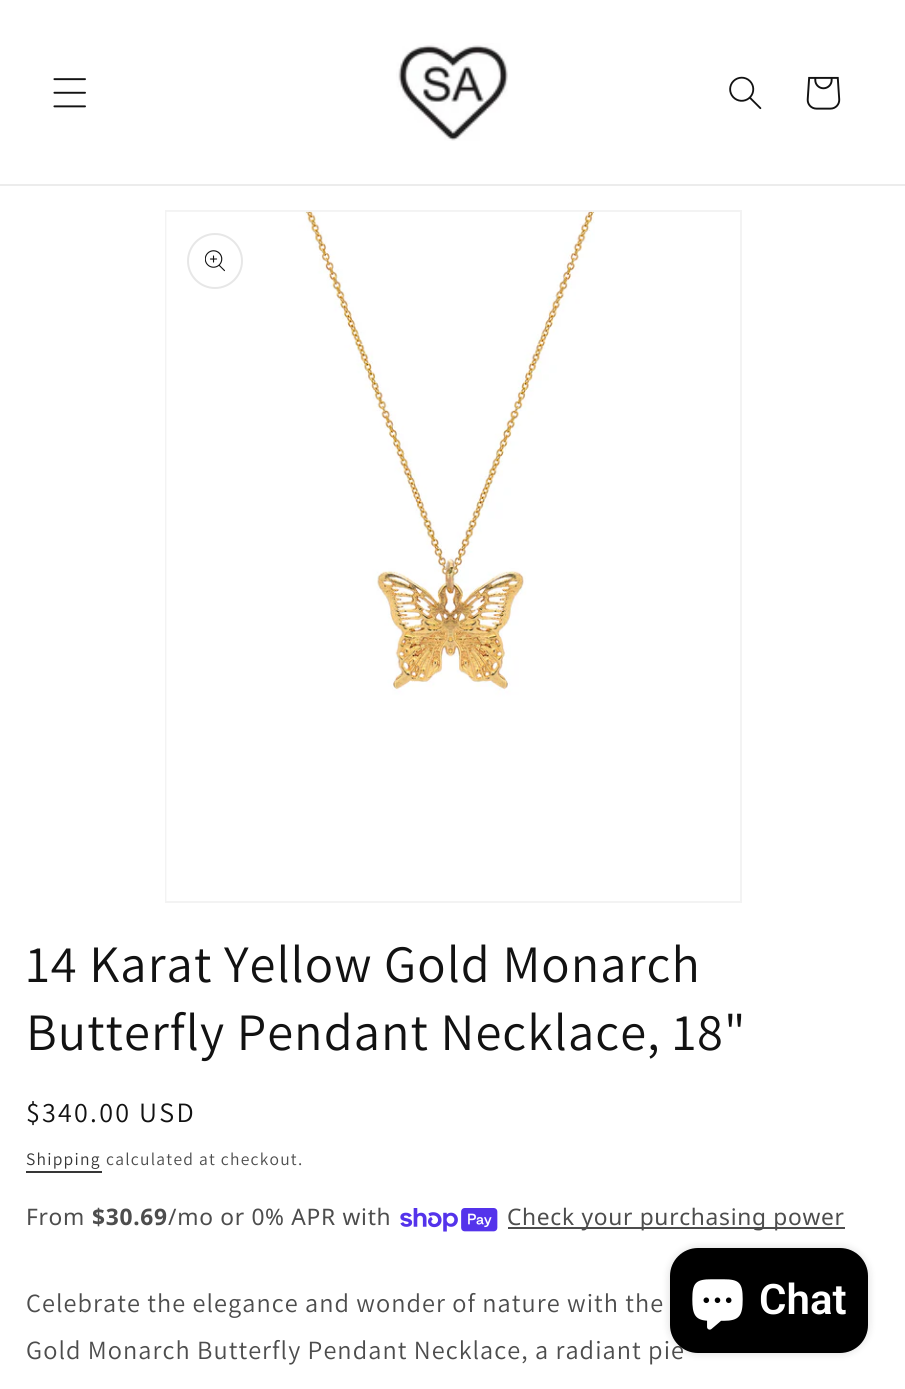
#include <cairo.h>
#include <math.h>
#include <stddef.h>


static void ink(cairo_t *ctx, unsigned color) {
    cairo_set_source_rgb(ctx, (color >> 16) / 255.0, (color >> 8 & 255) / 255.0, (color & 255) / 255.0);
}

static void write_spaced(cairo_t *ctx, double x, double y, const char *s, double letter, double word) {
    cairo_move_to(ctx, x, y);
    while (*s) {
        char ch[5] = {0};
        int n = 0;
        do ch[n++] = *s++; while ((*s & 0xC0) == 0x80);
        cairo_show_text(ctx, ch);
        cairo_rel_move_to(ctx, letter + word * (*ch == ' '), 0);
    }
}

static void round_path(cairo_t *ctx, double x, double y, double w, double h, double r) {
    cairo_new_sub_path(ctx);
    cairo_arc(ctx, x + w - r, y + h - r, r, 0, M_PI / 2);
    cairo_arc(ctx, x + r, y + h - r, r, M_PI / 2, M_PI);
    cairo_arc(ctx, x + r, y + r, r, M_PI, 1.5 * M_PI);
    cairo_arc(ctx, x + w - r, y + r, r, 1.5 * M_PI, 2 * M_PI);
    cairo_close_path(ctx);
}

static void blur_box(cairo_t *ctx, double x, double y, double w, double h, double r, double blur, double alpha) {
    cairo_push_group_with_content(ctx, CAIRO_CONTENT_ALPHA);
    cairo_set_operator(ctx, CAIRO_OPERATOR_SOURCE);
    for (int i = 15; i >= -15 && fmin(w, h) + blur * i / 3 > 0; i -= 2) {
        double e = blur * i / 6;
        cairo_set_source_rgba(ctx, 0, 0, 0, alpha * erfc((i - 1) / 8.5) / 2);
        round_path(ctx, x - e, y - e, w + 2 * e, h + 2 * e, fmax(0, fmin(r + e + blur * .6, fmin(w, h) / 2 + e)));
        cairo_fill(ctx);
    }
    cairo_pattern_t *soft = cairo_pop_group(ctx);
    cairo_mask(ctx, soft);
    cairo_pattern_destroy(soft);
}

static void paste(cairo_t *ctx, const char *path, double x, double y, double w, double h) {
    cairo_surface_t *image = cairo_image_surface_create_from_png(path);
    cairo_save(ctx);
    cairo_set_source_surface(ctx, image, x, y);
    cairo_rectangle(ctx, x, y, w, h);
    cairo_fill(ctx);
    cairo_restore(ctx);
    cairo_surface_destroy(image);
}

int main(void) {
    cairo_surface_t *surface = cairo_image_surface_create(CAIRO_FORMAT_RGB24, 905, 1389);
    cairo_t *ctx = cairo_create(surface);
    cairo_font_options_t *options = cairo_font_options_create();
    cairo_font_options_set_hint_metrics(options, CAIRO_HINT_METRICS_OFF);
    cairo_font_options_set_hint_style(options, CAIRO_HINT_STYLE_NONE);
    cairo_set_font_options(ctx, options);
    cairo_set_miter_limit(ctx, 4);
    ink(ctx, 0xFFFFFF);
    cairo_paint(ctx);
    ink(ctx, 0xECECEC);
    cairo_rectangle(ctx, 0, 184, 905, 2);
    cairo_fill(ctx);
    paste(ctx, "media/1.png", 53, 78, 33, 30);
    paste(ctx, "media/2.png", 396, 43, 112, 98);
    paste(ctx, "media/3.png", 729, 76, 33, 34);
    paste(ctx, "media/4.png", 806, 76, 35, 34);
    cairo_rectangle(ctx, 166, 211, 575, 691);
    ink(ctx, 0xF3F3F3);
    cairo_stroke(ctx);
    paste(ctx, "media/5.png", 166, 211, 429, 690);
    cairo_arc(ctx, 215, 261, 27, 0, 2 * M_PI);
    ink(ctx, 0xE7E7E7);
    cairo_stroke(ctx);
    paste(ctx, "media/6.png", 205, 250, 20, 22);
    cairo_select_font_face(ctx, "Assistant", CAIRO_FONT_SLANT_NORMAL, CAIRO_FONT_WEIGHT_NORMAL);
    cairo_set_font_size(ctx, 52.5);
    ink(ctx, 0x121212);
    write_spaced(ctx, 26, 982, "14 Karat Yellow Gold Monarch", 1.05, 0);
    write_spaced(ctx, 26, 1050, "Butterfly Pendant Necklace, 18\"", 1.05, 0);
    cairo_set_font_size(ctx, 28);
    write_spaced(ctx, 26, 1122, "$340.00 USD", 2.25, 0);
    cairo_set_font_size(ctx, 17.5);
    ink(ctx, 0x363636);
    write_spaced(ctx, 26, 1165, "Shipping", 1.25, 0);
    cairo_rectangle(ctx, 26, 1171, 76, 2);
    cairo_fill(ctx);
    ink(ctx, 0x4D4D4D);
    write_spaced(ctx, 106, 1165, "calculated at checkout.", 1.25, 0);
    cairo_select_font_face(ctx, "Noto Sans", CAIRO_FONT_SLANT_NORMAL, CAIRO_FONT_WEIGHT_NORMAL);
    cairo_set_font_size(ctx, 22.75);
    write_spaced(ctx, 26, 1225, "From", 0.7, 0);
    cairo_select_font_face(ctx, "Noto Sans", CAIRO_FONT_SLANT_NORMAL, CAIRO_FONT_WEIGHT_BOLD);
    write_spaced(ctx, 92, 1225, "$30.69", 0.7, 0);
    cairo_select_font_face(ctx, "Noto Sans", CAIRO_FONT_SLANT_NORMAL, CAIRO_FONT_WEIGHT_NORMAL);
    write_spaced(ctx, 168, 1225, "/mo or 0% APR with", 0.7, 0);
    paste(ctx, "media/7.png", 400, 1208, 98, 24);
    cairo_rectangle(ctx, 508, 1227, 337, 2);
    cairo_fill(ctx);
    write_spaced(ctx, 507, 1225, "Check your purchasing power", 0.7, 0);
    cairo_select_font_face(ctx, "Assistant", CAIRO_FONT_SLANT_NORMAL, CAIRO_FONT_WEIGHT_NORMAL);
    cairo_set_font_size(ctx, 26.25);
    write_spaced(ctx, 26, 1312, "Celebrate the elegance and wonder of nature with the", 1.05, 0);
    write_spaced(ctx, 26, 1359, "Gold Monarch Butterfly Pendant Necklace, a radiant pie", 1.05, 0);
    ink(ctx, 0x000000);
    blur_box(ctx, 670, 1248, 198, 105, 28, 4.5, 0.15);
    ink(ctx, 0x000000);
    round_path(ctx, 670, 1248, 198, 105, 28);
    cairo_fill(ctx);
    paste(ctx, "media/8.png", 692, 1279, 51, 51);
    cairo_select_font_face(ctx, "Roboto SemiBold", CAIRO_FONT_SLANT_NORMAL, CAIRO_FONT_WEIGHT_NORMAL);
    cairo_set_font_size(ctx, 42);
    ink(ctx, 0xFFFFFF);
    cairo_move_to(ctx, 759, 1314);
    cairo_show_text(ctx, "Chat");
    cairo_surface_write_to_png(surface, "image.png");
    cairo_font_options_destroy(options);
    cairo_destroy(ctx);
    cairo_surface_destroy(surface);
    return 0;
}
